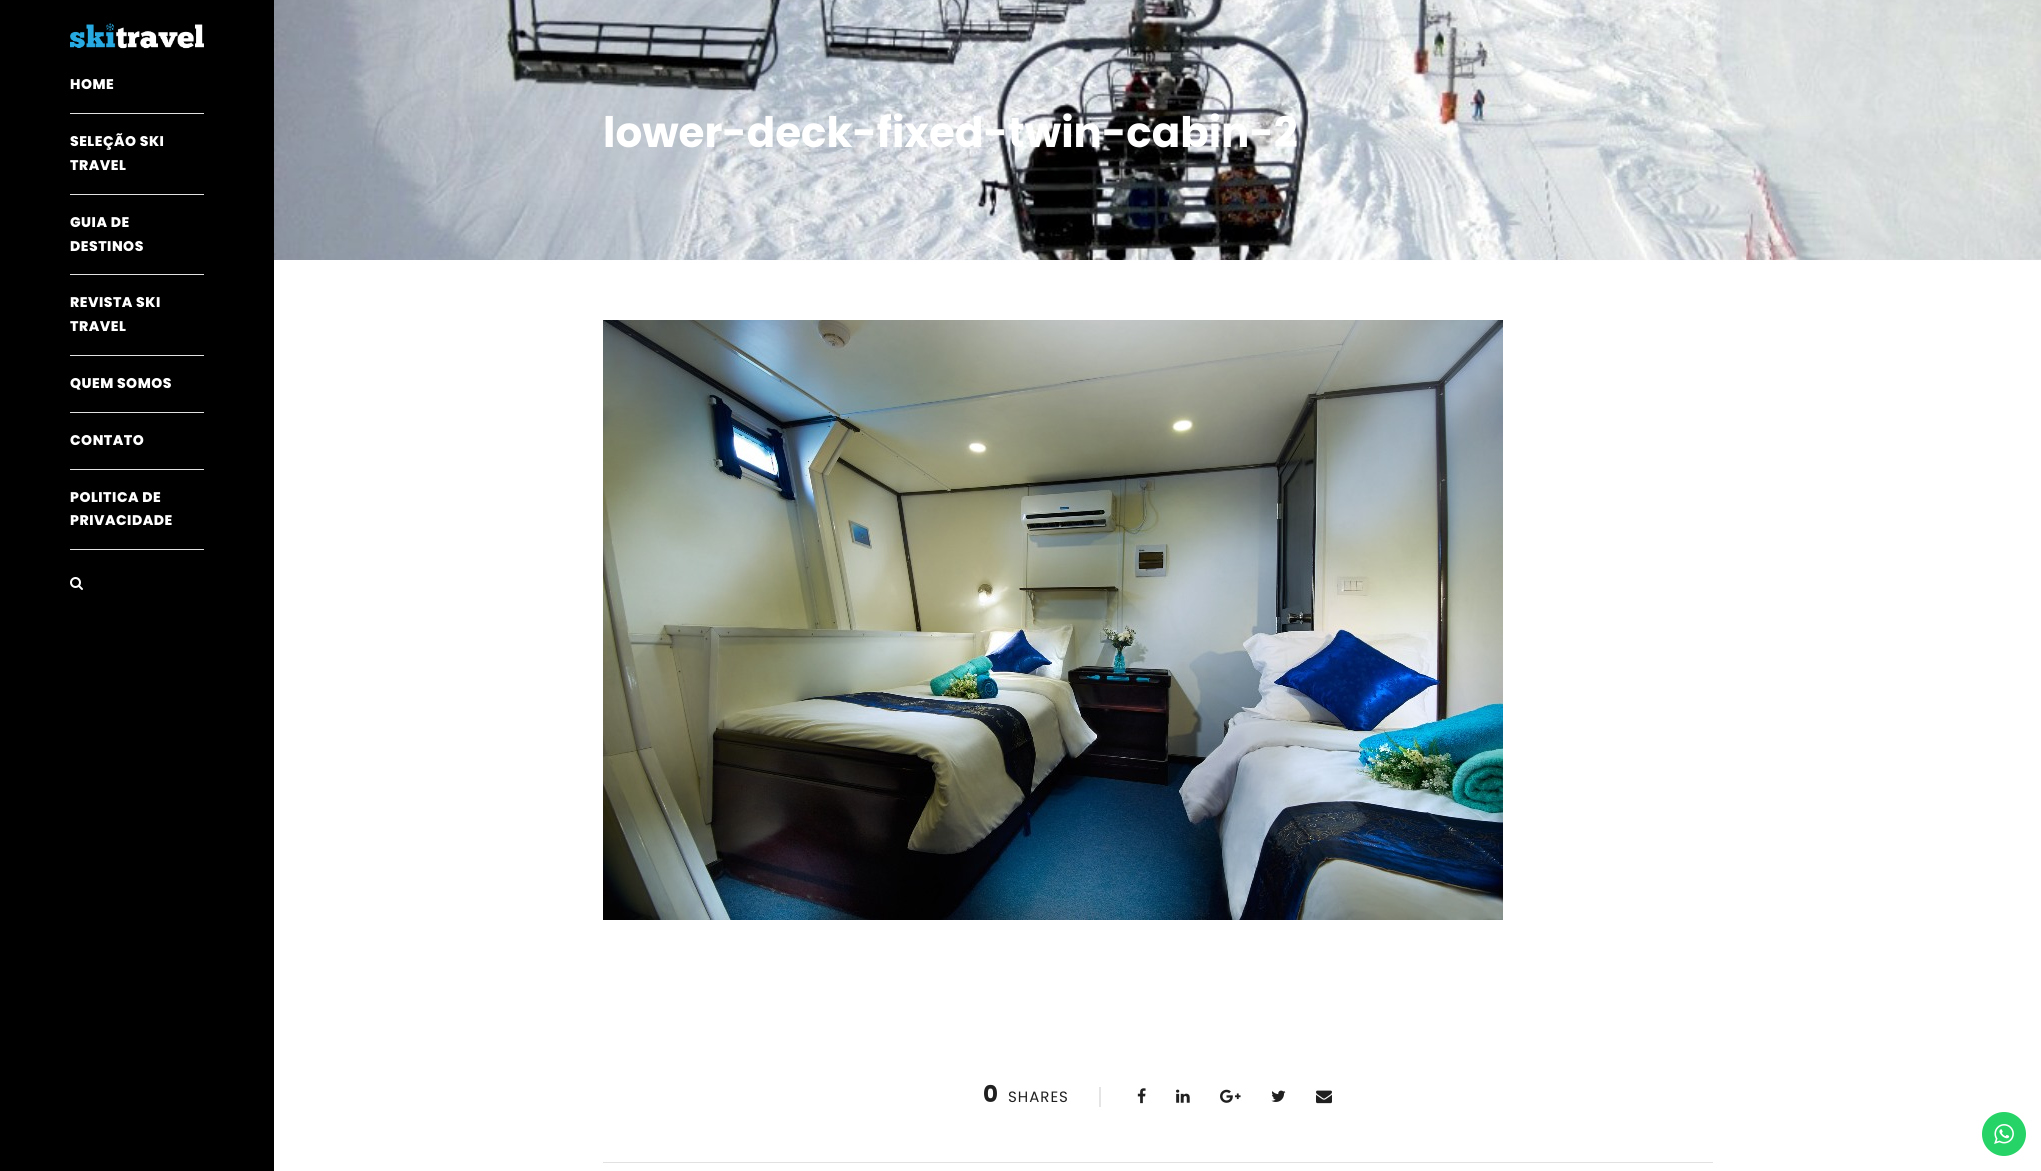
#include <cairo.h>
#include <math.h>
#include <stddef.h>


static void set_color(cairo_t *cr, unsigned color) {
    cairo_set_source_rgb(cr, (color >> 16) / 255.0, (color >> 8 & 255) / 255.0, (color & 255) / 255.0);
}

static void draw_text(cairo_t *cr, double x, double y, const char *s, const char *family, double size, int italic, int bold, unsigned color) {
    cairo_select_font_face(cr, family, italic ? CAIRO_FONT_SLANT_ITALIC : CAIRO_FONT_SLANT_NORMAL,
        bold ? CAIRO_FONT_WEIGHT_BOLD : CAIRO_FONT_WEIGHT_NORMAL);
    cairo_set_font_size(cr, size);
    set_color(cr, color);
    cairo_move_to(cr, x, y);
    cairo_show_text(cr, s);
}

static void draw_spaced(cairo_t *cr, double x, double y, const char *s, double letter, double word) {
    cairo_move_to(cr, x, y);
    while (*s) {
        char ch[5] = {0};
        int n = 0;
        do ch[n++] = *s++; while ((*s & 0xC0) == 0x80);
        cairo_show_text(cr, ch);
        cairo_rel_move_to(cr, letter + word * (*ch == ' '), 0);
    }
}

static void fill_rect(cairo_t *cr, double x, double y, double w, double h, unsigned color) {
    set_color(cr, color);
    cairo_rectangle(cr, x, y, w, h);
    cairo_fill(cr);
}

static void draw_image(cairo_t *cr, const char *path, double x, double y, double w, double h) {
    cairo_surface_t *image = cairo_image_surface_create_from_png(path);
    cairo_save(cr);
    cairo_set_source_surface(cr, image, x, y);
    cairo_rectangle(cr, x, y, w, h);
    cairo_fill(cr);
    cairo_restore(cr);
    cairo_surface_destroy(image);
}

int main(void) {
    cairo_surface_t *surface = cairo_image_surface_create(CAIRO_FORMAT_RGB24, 2041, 1171);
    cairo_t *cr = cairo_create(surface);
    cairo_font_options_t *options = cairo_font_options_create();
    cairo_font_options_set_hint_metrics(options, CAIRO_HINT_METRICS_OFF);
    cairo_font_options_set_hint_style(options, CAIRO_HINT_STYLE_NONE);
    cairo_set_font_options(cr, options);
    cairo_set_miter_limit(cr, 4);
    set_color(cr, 0xFFFFFF);
    cairo_paint(cr);
    fill_rect(cr, 0, 0, 274, 1171, 0x000000);
    draw_image(cr, "assets/img1.png", 70, 23, 134, 26);
    fill_rect(cr, 70, 113, 134, 1, 0xE1E1E1);
    cairo_select_font_face(cr, "Poppins ExtraBold", CAIRO_FONT_SLANT_NORMAL, CAIRO_FONT_WEIGHT_NORMAL);
    cairo_set_font_size(cr, 14);
    set_color(cr, 0xFFFFFF);
    draw_spaced(cr, 70, 89, "HOME", 0.5, 0);
    fill_rect(cr, 70, 194, 134, 1, 0xE1E1E1);
    set_color(cr, 0xFFFFFF);
    draw_spaced(cr, 70, 146, "SELEÇÃO SKI", 0.5, 0);
    draw_spaced(cr, 70, 170, "TRAVEL", 0.5, 0);
    fill_rect(cr, 70, 274, 134, 1, 0xE1E1E1);
    set_color(cr, 0xFFFFFF);
    draw_spaced(cr, 70, 227, "GUIA DE", 0.5, 0);
    draw_spaced(cr, 70, 251, "DESTINOS", 0.5, 0);
    fill_rect(cr, 70, 355, 134, 1, 0xE1E1E1);
    set_color(cr, 0xFFFFFF);
    draw_spaced(cr, 70, 307, "REVISTA SKI", 0.5, 0);
    draw_spaced(cr, 70, 331, "TRAVEL", 0.5, 0);
    fill_rect(cr, 70, 412, 134, 1, 0xE1E1E1);
    set_color(cr, 0xFFFFFF);
    draw_spaced(cr, 70, 388, "QUEM SOMOS", 0.5, 0);
    fill_rect(cr, 70, 469, 134, 1, 0xE1E1E1);
    set_color(cr, 0xFFFFFF);
    draw_spaced(cr, 70, 445, "CONTATO", 0.5, 0);
    fill_rect(cr, 70, 549, 134, 1, 0xE1E1E1);
    set_color(cr, 0xFFFFFF);
    draw_spaced(cr, 70, 502, "POLITICA DE", 0.5, 0);
    draw_spaced(cr, 70, 525, "PRIVACIDADE", 0.5, 0);
    draw_image(cr, "assets/img2.png", 70, 577, 13, 13);
    draw_image(cr, "assets/img3.png", 274, 0, 1767, 260);
    draw_text(cr, 603, 147, "lower-deck-fixed-twin-cabin-2", "Poppins", 42, 0, 1, 0xFFFFFF);
    draw_image(cr, "assets/img4.png", 603, 320, 900, 600);
    draw_text(cr, 983, 1102, "0", "Poppins", 23, 0, 1, 0x202020);
    cairo_select_font_face(cr, "Poppins", CAIRO_FONT_SLANT_NORMAL, CAIRO_FONT_WEIGHT_NORMAL);
    cairo_set_font_size(cr, 15);
    draw_spaced(cr, 1008, 1102, "SHARES", 1, 0);
    fill_rect(cr, 1099, 1087, 2, 20, 0xE5E5E5);
    draw_image(cr, "assets/img5.png", 1137, 1088, 9, 16);
    draw_image(cr, "assets/img6.png", 1176, 1089, 14, 14);
    draw_image(cr, "assets/img7.png", 1220, 1089, 21, 14);
    draw_image(cr, "assets/img8.png", 1271, 1090, 15, 12);
    draw_image(cr, "assets/img9.png", 1316, 1090, 16, 14);
    fill_rect(cr, 603, 1162, 1110, 1, 0xE1E1E1);
    set_color(cr, 0x25D366);
    cairo_arc(cr, 2004, 1134, 22, 0, 2 * M_PI);
    cairo_fill(cr);
    draw_image(cr, "assets/img10.png", 1994, 1124, 20, 20);
    cairo_surface_write_to_png(surface, "output.png");
    cairo_font_options_destroy(options);
    cairo_destroy(cr);
    cairo_surface_destroy(surface);
    return 0;
}
